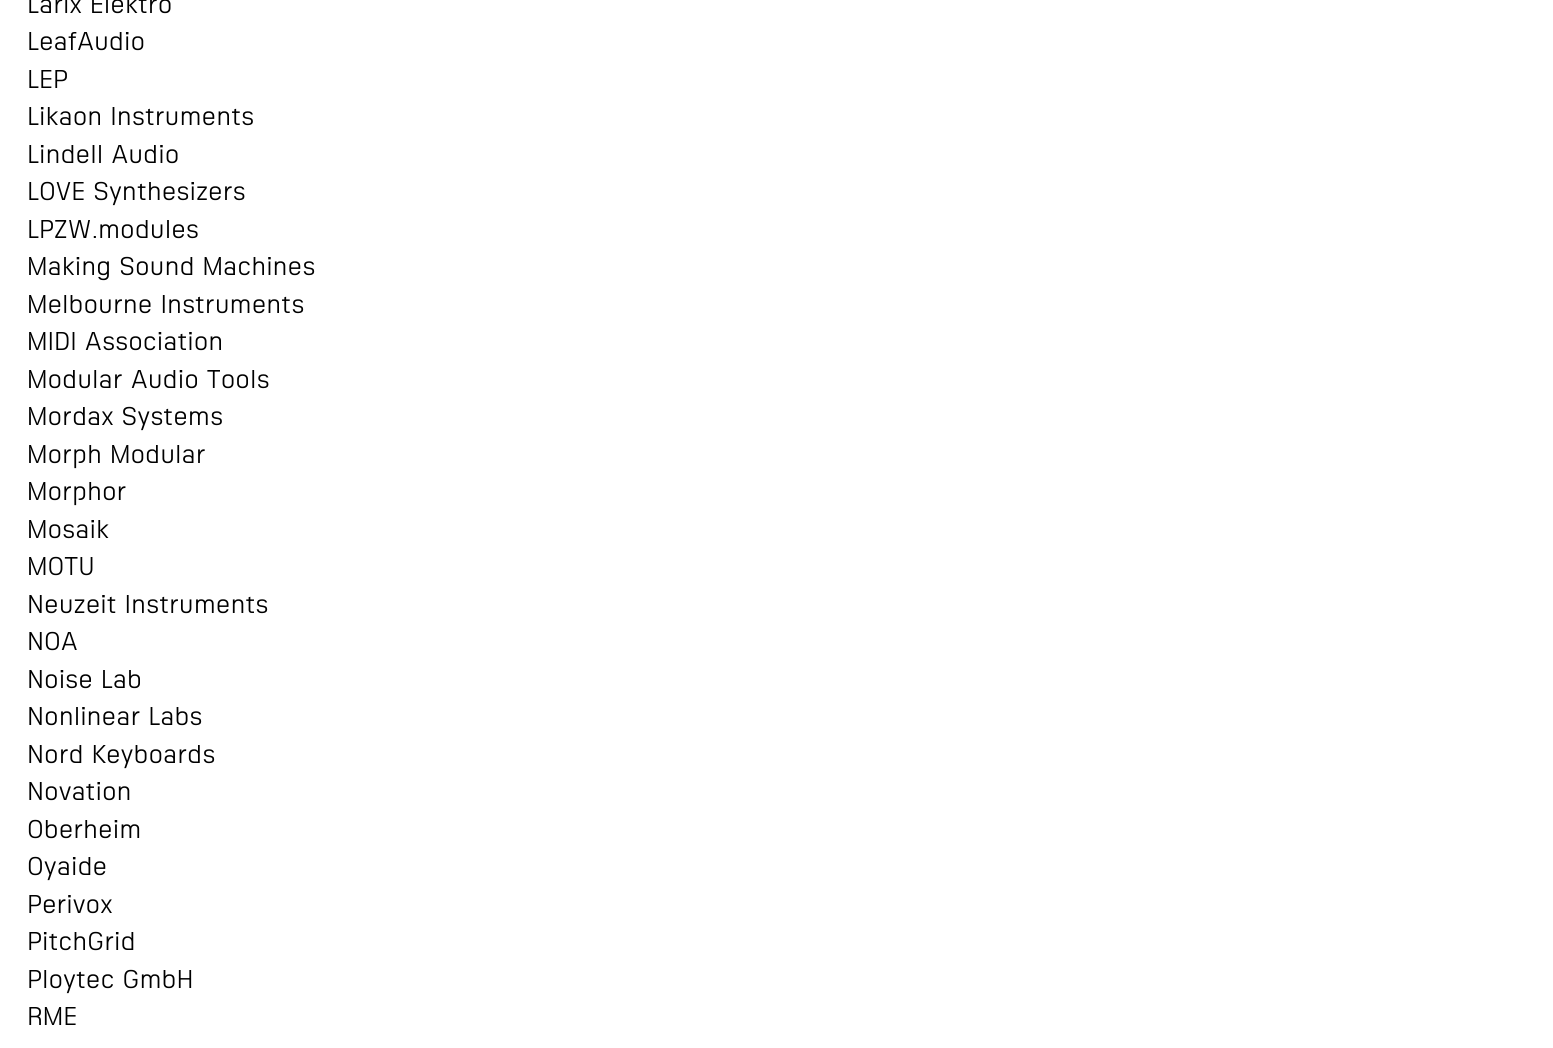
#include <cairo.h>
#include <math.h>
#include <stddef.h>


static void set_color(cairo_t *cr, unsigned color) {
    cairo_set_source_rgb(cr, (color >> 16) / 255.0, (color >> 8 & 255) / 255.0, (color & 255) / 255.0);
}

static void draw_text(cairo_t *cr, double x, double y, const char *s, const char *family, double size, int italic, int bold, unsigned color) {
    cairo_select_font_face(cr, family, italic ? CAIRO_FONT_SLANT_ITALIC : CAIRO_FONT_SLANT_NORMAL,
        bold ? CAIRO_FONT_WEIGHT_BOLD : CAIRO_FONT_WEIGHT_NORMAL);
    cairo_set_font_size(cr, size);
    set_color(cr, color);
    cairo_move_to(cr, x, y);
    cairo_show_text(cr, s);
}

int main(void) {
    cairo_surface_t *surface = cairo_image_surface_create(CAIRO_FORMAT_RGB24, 1553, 1048);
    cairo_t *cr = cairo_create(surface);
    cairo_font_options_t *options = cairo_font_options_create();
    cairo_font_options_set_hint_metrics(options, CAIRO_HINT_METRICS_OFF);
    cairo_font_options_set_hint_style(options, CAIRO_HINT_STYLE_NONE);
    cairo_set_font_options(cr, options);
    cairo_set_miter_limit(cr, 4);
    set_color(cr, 0xFFFFFF);
    cairo_paint(cr);
    draw_text(cr, 27, 13, "Larix Elektro", "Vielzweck", 25, 0, 0, 0x000000);
    draw_text(cr, 27, 50, "LeafAudio", "Vielzweck", 25, 0, 0, 0x000000);
    draw_text(cr, 27, 88, "LEP", "Vielzweck", 25, 0, 0, 0x000000);
    draw_text(cr, 27, 125, "Likaon Instruments", "Vielzweck", 25, 0, 0, 0x000000);
    draw_text(cr, 27, 163, "Lindell Audio", "Vielzweck", 25, 0, 0, 0x000000);
    draw_text(cr, 27, 200, "LOVE Synthesizers", "Vielzweck", 25, 0, 0, 0x000000);
    draw_text(cr, 27, 238, "LPZW.modules", "Vielzweck", 25, 0, 0, 0x000000);
    draw_text(cr, 27, 275, "Making Sound Machines", "Vielzweck", 25, 0, 0, 0x000000);
    draw_text(cr, 27, 313, "Melbourne Instruments", "Vielzweck", 25, 0, 0, 0x000000);
    draw_text(cr, 27, 350, "MIDI Association", "Vielzweck", 25, 0, 0, 0x000000);
    draw_text(cr, 27, 388, "Modular Audio Tools", "Vielzweck", 25, 0, 0, 0x000000);
    draw_text(cr, 27, 425, "Mordax Systems", "Vielzweck", 25, 0, 0, 0x000000);
    draw_text(cr, 27, 463, "Morph Modular", "Vielzweck", 25, 0, 0, 0x000000);
    draw_text(cr, 27, 500, "Morphor", "Vielzweck", 25, 0, 0, 0x000000);
    draw_text(cr, 27, 538, "Mosaik", "Vielzweck", 25, 0, 0, 0x000000);
    draw_text(cr, 27, 575, "MOTU", "Vielzweck", 25, 0, 0, 0x000000);
    draw_text(cr, 27, 613, "Neuzeit Instruments", "Vielzweck", 25, 0, 0, 0x000000);
    draw_text(cr, 27, 650, "NOA", "Vielzweck", 25, 0, 0, 0x000000);
    draw_text(cr, 27, 688, "Noise Lab", "Vielzweck", 25, 0, 0, 0x000000);
    draw_text(cr, 27, 725, "Nonlinear Labs", "Vielzweck", 25, 0, 0, 0x000000);
    draw_text(cr, 27, 763, "Nord Keyboards", "Vielzweck", 25, 0, 0, 0x000000);
    draw_text(cr, 27, 800, "Novation", "Vielzweck", 25, 0, 0, 0x000000);
    draw_text(cr, 27, 838, "Oberheim", "Vielzweck", 25, 0, 0, 0x000000);
    draw_text(cr, 27, 875, "Oyaide", "Vielzweck", 25, 0, 0, 0x000000);
    draw_text(cr, 27, 913, "Perivox", "Vielzweck", 25, 0, 0, 0x000000);
    draw_text(cr, 27, 950, "PitchGrid", "Vielzweck", 25, 0, 0, 0x000000);
    draw_text(cr, 27, 988, "Ploytec GmbH", "Vielzweck", 25, 0, 0, 0x000000);
    draw_text(cr, 27, 1025, "RME", "Vielzweck", 25, 0, 0, 0x000000);
    cairo_surface_write_to_png(surface, "output.png");
    cairo_font_options_destroy(options);
    cairo_destroy(cr);
    cairo_surface_destroy(surface);
    return 0;
}
